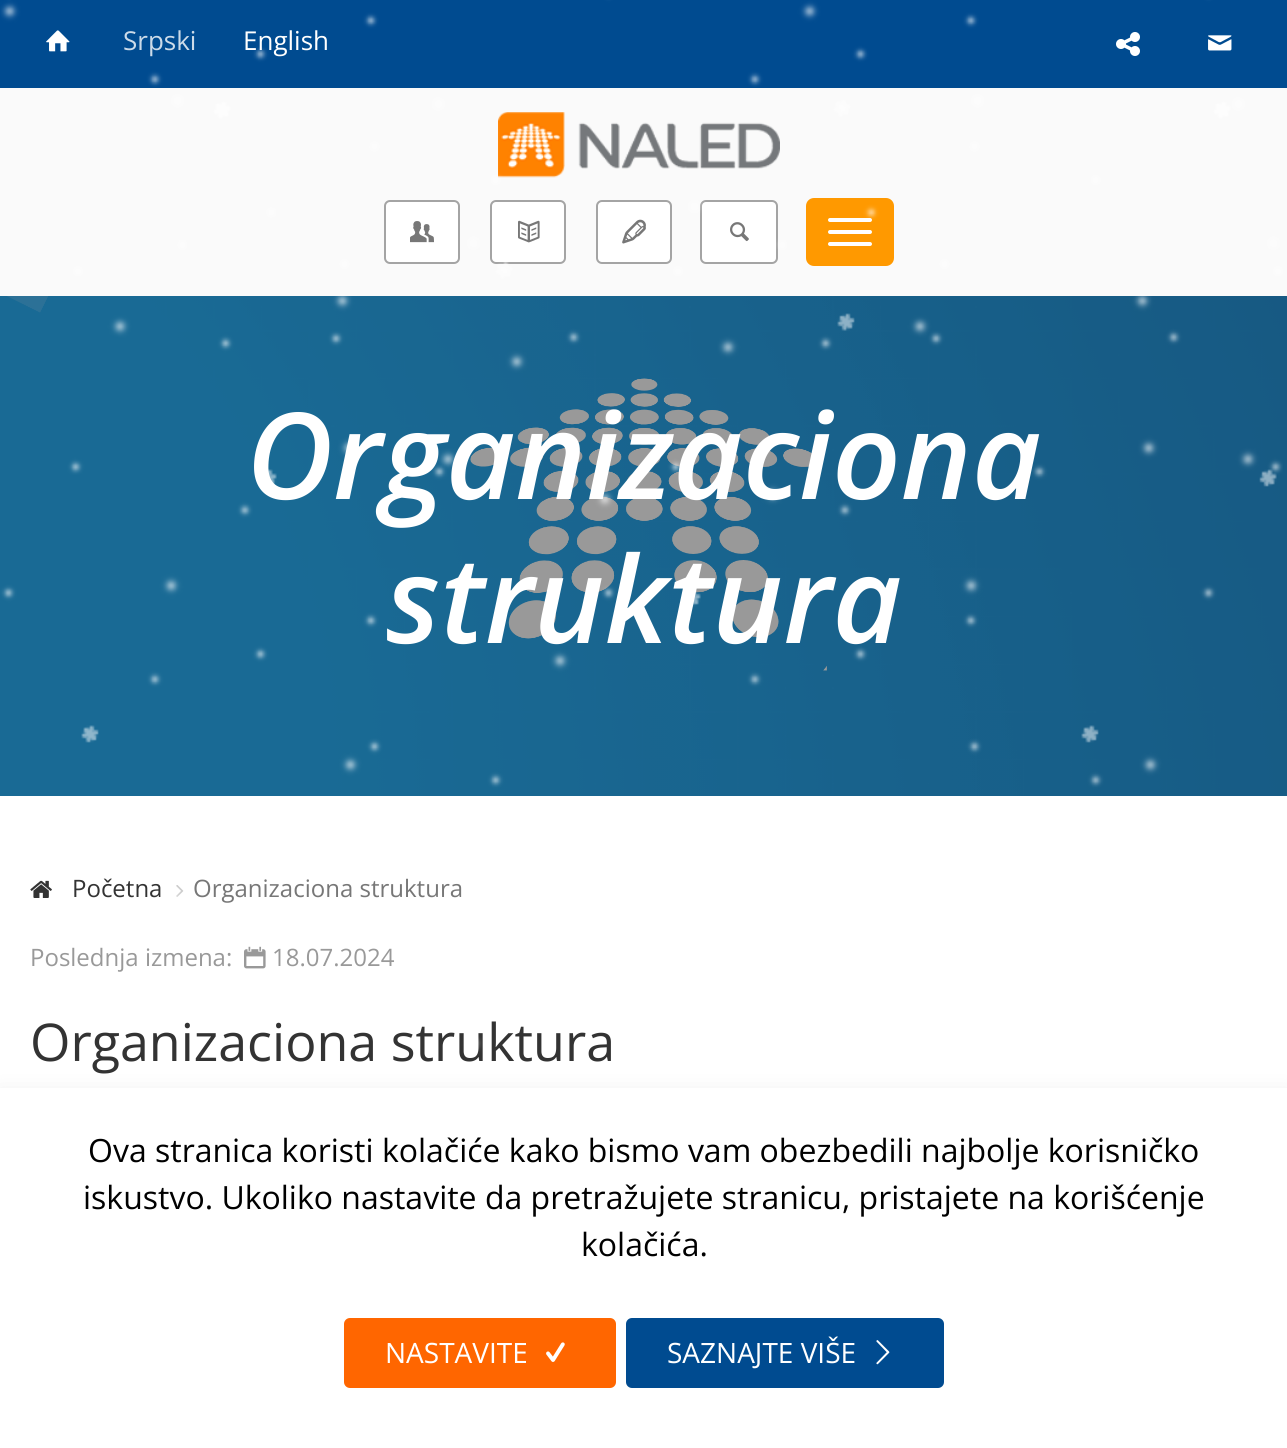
#include <cairo.h>
#include <math.h>
#include <stddef.h>


static void set_color(cairo_t *cr, unsigned color) {
    cairo_set_source_rgb(cr, (color >> 16) / 255.0, (color >> 8 & 255) / 255.0, (color & 255) / 255.0);
}

static void draw_text(cairo_t *cr, double x, double y, const char *s, const char *family, double size, int italic, int bold, unsigned color) {
    cairo_select_font_face(cr, family, italic ? CAIRO_FONT_SLANT_ITALIC : CAIRO_FONT_SLANT_NORMAL,
        bold ? CAIRO_FONT_WEIGHT_BOLD : CAIRO_FONT_WEIGHT_NORMAL);
    cairo_set_font_size(cr, size);
    set_color(cr, color);
    cairo_move_to(cr, x, y);
    cairo_show_text(cr, s);
}

static void fill_rect(cairo_t *cr, double x, double y, double w, double h, unsigned color) {
    set_color(cr, color);
    cairo_rectangle(cr, x, y, w, h);
    cairo_fill(cr);
}

static void rounded_rect(cairo_t *cr, double x, double y, double w, double h, double r) {
    cairo_new_sub_path(cr);
    cairo_arc(cr, x + w - r, y + h - r, r, 0, M_PI / 2);
    cairo_arc(cr, x + r, y + h - r, r, M_PI / 2, M_PI);
    cairo_arc(cr, x + r, y + r, r, M_PI, 1.5 * M_PI);
    cairo_arc(cr, x + w - r, y + r, r, 1.5 * M_PI, 2 * M_PI);
    cairo_close_path(cr);
}

static void draw_shadow(cairo_t *cr, double x, double y, double w, double h, double r, double blur, double alpha) {
    cairo_push_group_with_content(cr, CAIRO_CONTENT_ALPHA);
    cairo_set_operator(cr, CAIRO_OPERATOR_SOURCE);
    for (int i = 15; i >= -15 && fmin(w, h) + blur * i / 3 > 0; i -= 2) {
        double e = blur * i / 6;
        cairo_set_source_rgba(cr, 0, 0, 0, alpha * erfc((i - 1) / 8.5) / 2);
        rounded_rect(cr, x - e, y - e, w + 2 * e, h + 2 * e, fmax(0, fmin(r + e + blur * .6, fmin(w, h) / 2 + e)));
        cairo_fill(cr);
    }
    cairo_pattern_t *soft = cairo_pop_group(cr);
    cairo_mask(cr, soft);
    cairo_pattern_destroy(soft);
}

static void draw_image(cairo_t *cr, const char *path, double x, double y, double w, double h) {
    cairo_surface_t *image = cairo_image_surface_create_from_png(path);
    cairo_save(cr);
    cairo_set_source_surface(cr, image, x, y);
    cairo_rectangle(cr, x, y, w, h);
    cairo_fill(cr);
    cairo_restore(cr);
    cairo_surface_destroy(image);
}

int main(void) {
    cairo_surface_t *surface = cairo_image_surface_create(CAIRO_FORMAT_RGB24, 1287, 1448);
    cairo_t *cr = cairo_create(surface);
    cairo_font_options_t *options = cairo_font_options_create();
    cairo_font_options_set_hint_metrics(options, CAIRO_HINT_METRICS_OFF);
    cairo_font_options_set_hint_style(options, CAIRO_HINT_STYLE_NONE);
    cairo_set_font_options(cr, options);
    cairo_set_miter_limit(cr, 4);
    set_color(cr, 0xFFFFFF);
    cairo_paint(cr);
    fill_rect(cr, 0, 0, 1287, 88, 0x004B90);
    draw_image(cr, "assets/img2.png", 46, 30, 24, 22);
    draw_text(cr, 123, 50, "Srpski", "Open Sans", 26, 0, 0, 0xCCDBE9);
    draw_text(cr, 243, 50, "English", "Open Sans", 26, 0, 0, 0xFFFFFF);
    draw_image(cr, "assets/img3.png", 1116, 32, 24, 24);
    draw_image(cr, "assets/img4.png", 1208, 35, 24, 16);
    fill_rect(cr, 0, 88, 1287, 208, 0xFAFAFA);
    draw_image(cr, "assets/img5.png", 498, 112, 282, 66);
    set_color(cr, 0xFFFFFF);
    rounded_rect(cr, 385, 201, 74, 62, 5);
    cairo_fill_preserve(cr);
    set_color(cr, 0xA4A4A4);
    cairo_stroke(cr);
    draw_image(cr, "assets/img6.png", 410, 221, 24, 22);
    set_color(cr, 0xFFFFFF);
    rounded_rect(cr, 491, 201, 74, 62, 5);
    cairo_fill_preserve(cr);
    set_color(cr, 0xA4A4A4);
    cairo_stroke(cr);
    draw_image(cr, "assets/img7.png", 518, 220, 22, 23);
    set_color(cr, 0xFFFFFF);
    rounded_rect(cr, 597, 201, 74, 62, 5);
    cairo_fill_preserve(cr);
    set_color(cr, 0xA4A4A4);
    cairo_stroke(cr);
    draw_image(cr, "assets/img8.png", 622, 219, 24, 25);
    set_color(cr, 0xFFFFFF);
    rounded_rect(cr, 701, 201, 76, 62, 5);
    cairo_fill_preserve(cr);
    set_color(cr, 0xA4A4A4);
    cairo_stroke(cr);
    draw_image(cr, "assets/img9.png", 730, 222, 19, 20);
    set_color(cr, 0xFF9900);
    rounded_rect(cr, 807, 199, 86, 66, 7);
    cairo_fill_preserve(cr);
    cairo_stroke(cr);
    set_color(cr, 0xFFFFFF);
    rounded_rect(cr, 828, 218, 44, 4, 2);
    cairo_fill(cr);
    rounded_rect(cr, 828, 230, 44, 4, 2);
    cairo_fill(cr);
    rounded_rect(cr, 828, 242, 44, 4, 2);
    cairo_fill(cr);
    draw_image(cr, "assets/img10.png", 0, 296, 1287, 500);
    draw_text(cr, 246, 499, "Organizaciona", "Open Sans SemiBold", 120, 1, 0, 0xFFFFFF);
    draw_text(cr, 386, 643, "struktura", "Open Sans SemiBold", 120, 1, 0, 0xFFFFFF);
    draw_image(cr, "assets/img11.png", 30, 880, 22, 18);
    draw_text(cr, 72, 897, "Početna", "Open Sans", 24, 0, 0, 0x333333);
    draw_image(cr, "assets/img12.png", 176, 885, 8, 12);
    draw_text(cr, 193, 897, "Organizaciona struktura", "Open Sans", 24, 0, 0, 0x777777);
    draw_text(cr, 30, 966, "Poslednja izmena:", "Open Sans", 24, 0, 0, 0x999999);
    draw_image(cr, "assets/img13.png", 244, 946, 22, 23);
    draw_text(cr, 272, 966, "18.07.2024", "Open Sans", 24, 0, 0, 0x999999);
    draw_text(cr, 30, 1061, "Organizaciona struktura", "Open Sans", 52, 0, 0, 0x333333);
    draw_image(cr, "assets/img1.png", 0, 0, 1283, 1079);
    set_color(cr, 0x000000);
    draw_shadow(cr, 0, 1096, 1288, 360, 0, 12, 0.1);
    fill_rect(cr, 0, 1088, 1287, 360, 0xFFFFFF);
    draw_text(cr, 88, 1162, "Ova stranica koristi kolačiće kako bismo vam obezbedili najbolje korisničko", "Open Sans", 32, 0, 0, 0x000000);
    draw_text(cr, 83, 1209, "iskustvo. Ukoliko nastavite da pretražujete stranicu, pristajete na korišćenje", "Open Sans", 32, 0, 0, 0x000000);
    draw_text(cr, 581, 1256, "kolačića.", "Open Sans", 32, 0, 0, 0x000000);
    set_color(cr, 0xFF6600);
    rounded_rect(cr, 345, 1319, 270, 68, 5);
    cairo_fill_preserve(cr);
    cairo_stroke(cr);
    draw_text(cr, 385, 1363, "NASTAVITE", "Open Sans", 28, 0, 0, 0xFFFFFF);
    draw_image(cr, "assets/img14.png", 546, 1342, 19, 20);
    set_color(cr, 0x004B90);
    rounded_rect(cr, 626, 1318, 318, 70, 6);
    cairo_fill(cr);
    draw_text(cr, 667, 1363, "SAZNAJTE VIŠE", "Open Sans", 28, 0, 0, 0xFFFFFF);
    draw_image(cr, "assets/img15.png", 876, 1340, 14, 25);
    cairo_surface_write_to_png(surface, "output.png");
    cairo_font_options_destroy(options);
    cairo_destroy(cr);
    cairo_surface_destroy(surface);
    return 0;
}
